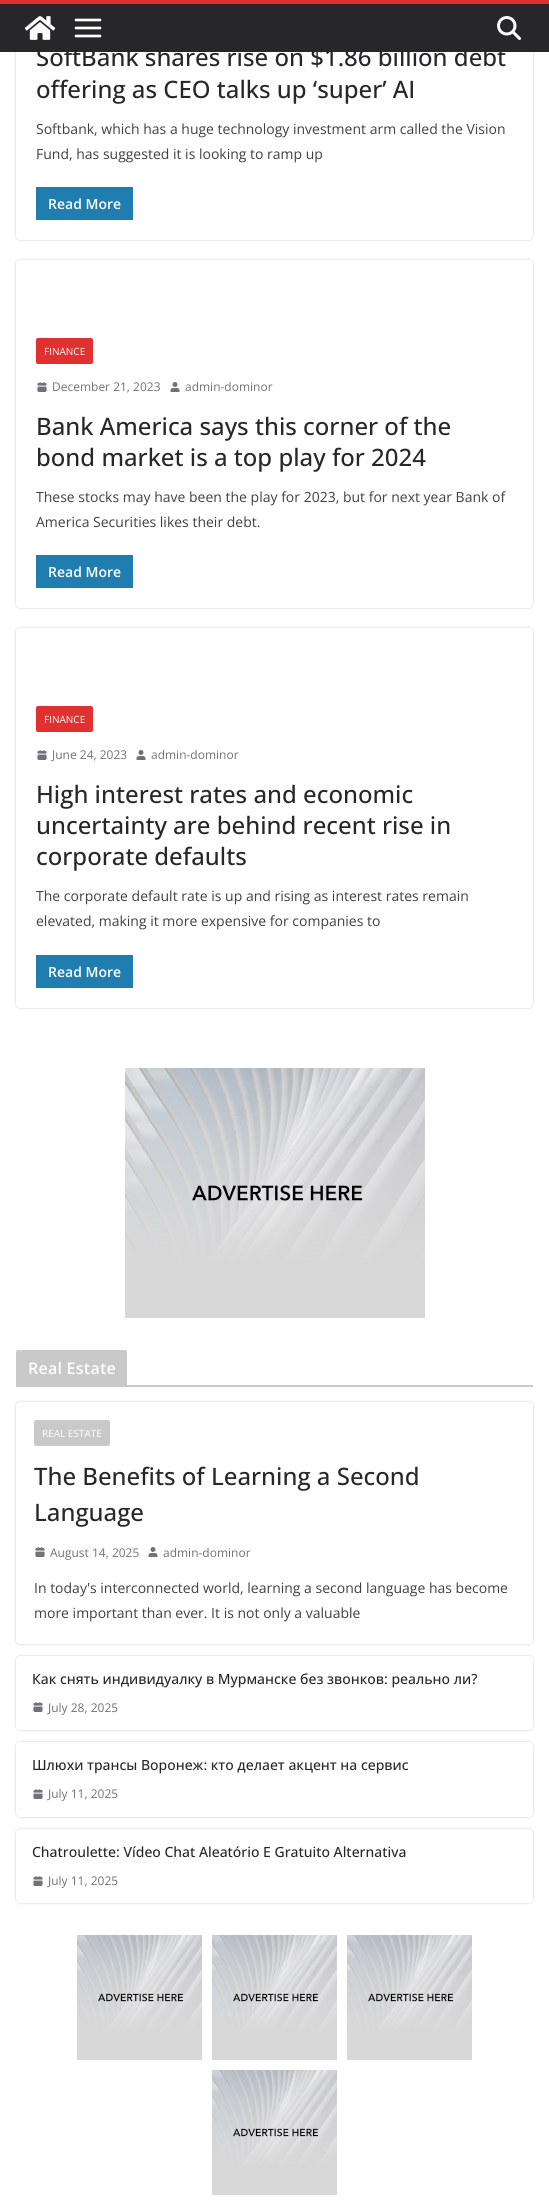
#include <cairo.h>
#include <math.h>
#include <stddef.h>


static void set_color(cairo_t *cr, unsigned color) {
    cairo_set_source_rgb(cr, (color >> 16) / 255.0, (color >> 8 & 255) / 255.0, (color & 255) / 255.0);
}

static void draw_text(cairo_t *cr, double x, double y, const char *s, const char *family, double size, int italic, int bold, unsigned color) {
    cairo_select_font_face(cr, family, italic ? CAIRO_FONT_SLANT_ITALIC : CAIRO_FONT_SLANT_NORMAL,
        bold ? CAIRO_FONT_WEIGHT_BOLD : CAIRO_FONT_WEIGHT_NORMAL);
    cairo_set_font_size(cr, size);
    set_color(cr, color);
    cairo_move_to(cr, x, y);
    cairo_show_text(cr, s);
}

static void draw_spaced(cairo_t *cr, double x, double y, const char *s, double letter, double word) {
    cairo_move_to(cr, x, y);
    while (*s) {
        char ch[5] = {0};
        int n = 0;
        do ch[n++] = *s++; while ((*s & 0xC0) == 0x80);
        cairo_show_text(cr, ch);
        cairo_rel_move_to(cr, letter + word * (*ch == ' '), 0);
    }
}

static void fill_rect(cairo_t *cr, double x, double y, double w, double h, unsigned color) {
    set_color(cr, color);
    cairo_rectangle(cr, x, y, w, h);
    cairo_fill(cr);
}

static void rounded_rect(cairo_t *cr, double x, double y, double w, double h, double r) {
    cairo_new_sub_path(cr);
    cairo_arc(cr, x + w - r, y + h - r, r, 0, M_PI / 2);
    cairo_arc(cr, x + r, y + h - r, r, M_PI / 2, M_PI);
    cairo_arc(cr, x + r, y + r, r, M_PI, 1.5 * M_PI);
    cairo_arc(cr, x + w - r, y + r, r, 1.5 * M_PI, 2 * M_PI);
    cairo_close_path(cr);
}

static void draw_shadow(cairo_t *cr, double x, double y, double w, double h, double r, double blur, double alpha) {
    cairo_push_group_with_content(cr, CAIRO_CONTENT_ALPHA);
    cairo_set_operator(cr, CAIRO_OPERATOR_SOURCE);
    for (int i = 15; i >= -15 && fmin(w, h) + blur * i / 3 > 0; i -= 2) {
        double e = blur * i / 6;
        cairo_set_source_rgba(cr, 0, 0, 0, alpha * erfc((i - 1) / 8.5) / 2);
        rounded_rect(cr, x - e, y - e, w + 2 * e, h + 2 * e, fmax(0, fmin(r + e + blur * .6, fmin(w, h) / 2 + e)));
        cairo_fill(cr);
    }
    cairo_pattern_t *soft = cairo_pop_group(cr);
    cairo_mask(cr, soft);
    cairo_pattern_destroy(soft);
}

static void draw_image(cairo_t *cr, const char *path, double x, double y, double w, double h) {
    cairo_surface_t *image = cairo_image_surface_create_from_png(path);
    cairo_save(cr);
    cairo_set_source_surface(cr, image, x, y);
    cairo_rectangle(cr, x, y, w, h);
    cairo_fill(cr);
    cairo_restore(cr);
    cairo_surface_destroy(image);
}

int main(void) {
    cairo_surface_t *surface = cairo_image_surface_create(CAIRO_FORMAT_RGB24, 549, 2208);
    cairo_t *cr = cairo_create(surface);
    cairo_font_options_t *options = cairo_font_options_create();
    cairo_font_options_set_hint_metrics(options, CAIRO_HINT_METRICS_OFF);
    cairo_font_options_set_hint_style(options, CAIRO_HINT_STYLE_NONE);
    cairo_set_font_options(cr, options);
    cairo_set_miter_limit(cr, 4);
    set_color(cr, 0xFFFFFF);
    cairo_paint(cr);
    cairo_save(cr);
    cairo_set_fill_rule(cr, CAIRO_FILL_RULE_EVEN_ODD);
    cairo_new_path(cr);
    cairo_move_to(cr, 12, 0);
    cairo_line_to(cr, 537, 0);
    cairo_line_to(cr, 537, 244);
    cairo_line_to(cr, 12, 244);
    cairo_close_path(cr);
    cairo_move_to(cr, 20, -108);
    cairo_line_to(cr, 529, -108);
    cairo_curve_to(cr, 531, -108, 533, -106, 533, -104);
    cairo_line_to(cr, 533, 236);
    cairo_curve_to(cr, 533, 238, 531, 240, 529, 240);
    cairo_line_to(cr, 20, 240);
    cairo_curve_to(cr, 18, 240, 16, 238, 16, 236);
    cairo_line_to(cr, 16, -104);
    cairo_curve_to(cr, 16, -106, 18, -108, 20, -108);
    cairo_close_path(cr);
    cairo_clip(cr);
    set_color(cr, 0x000000);
    draw_shadow(cr, 16, -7, 517, 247, 4, 1, 0.24);
    cairo_restore(cr);
    fill_rect(cr, 0, 4, 549, 48, 0x27272A);
    fill_rect(cr, 0, 0, 549, 4, 0xE03030);
    draw_image(cr, "assets/img1.png", 24, 16, 32, 24);
    draw_image(cr, "assets/img2.png", 74, 18, 28, 20);
    draw_image(cr, "assets/img3.png", 497, 16, 24, 24);
    draw_text(cr, 36, 66, "SoftBank shares rise on $1.86 billion debt", "Open Sans Medium", 24, 0, 0, 0x27272A);
    draw_text(cr, 36, 98, "offering as CEO talks up ‘super’ AI", "Open Sans Medium", 24, 0, 0, 0x27272A);
    draw_text(cr, 36, 134, "Softbank, which has a huge technology investment arm called the Vision", "Open Sans", 14, 0, 0, 0x3F3F46);
    draw_text(cr, 36, 159, "Fund, has suggested it is looking to ramp up", "Open Sans", 14, 0, 0, 0x3F3F46);
    fill_rect(cr, 36, 187, 97, 33, 0xE03030);
    set_color(cr, 0x207DAF);
    rounded_rect(cr, 36, 187, 97, 33, 2);
    cairo_fill(cr);
    draw_text(cr, 48, 209, "Read More", "Open Sans SemiBold", 14, 0, 0, 0xFFFFFF);
    cairo_save(cr);
    cairo_set_fill_rule(cr, CAIRO_FILL_RULE_EVEN_ODD);
    cairo_new_path(cr);
    cairo_move_to(cr, 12, 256);
    cairo_line_to(cr, 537, 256);
    cairo_line_to(cr, 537, 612);
    cairo_line_to(cr, 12, 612);
    cairo_close_path(cr);
    cairo_move_to(cr, 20, 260);
    cairo_line_to(cr, 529, 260);
    cairo_curve_to(cr, 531, 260, 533, 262, 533, 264);
    cairo_line_to(cr, 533, 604);
    cairo_curve_to(cr, 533, 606, 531, 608, 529, 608);
    cairo_line_to(cr, 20, 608);
    cairo_curve_to(cr, 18, 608, 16, 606, 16, 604);
    cairo_line_to(cr, 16, 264);
    cairo_curve_to(cr, 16, 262, 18, 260, 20, 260);
    cairo_close_path(cr);
    cairo_clip(cr);
    set_color(cr, 0x000000);
    draw_shadow(cr, 16, 260, 517, 348, 4, 1, 0.24);
    cairo_restore(cr);
    set_color(cr, 0xE03030);
    rounded_rect(cr, 36, 338, 57, 26, 2);
    cairo_fill(cr);
    draw_text(cr, 44, 355, "FINANCE", "Open Sans", 10, 0, 0, 0xFFFFFF);
    draw_image(cr, "assets/img4.png", 37, 382, 10, 10);
    draw_text(cr, 52, 391, "December 21, 2023", "Open Sans", 12, 0, 0, 0x71717A);
    draw_image(cr, "assets/img5.png", 170, 382, 10, 10);
    draw_text(cr, 185, 391, "admin-dominor", "Open Sans", 12, 0, 0, 0x71717A);
    draw_text(cr, 36, 435, "Bank America says this corner of the", "Open Sans Medium", 24, 0, 0, 0x27272A);
    draw_text(cr, 36, 466, "bond market is a top play for 2024", "Open Sans Medium", 24, 0, 0, 0x27272A);
    draw_text(cr, 36, 502, "These stocks may have been the play for 2023, but for next year Bank of", "Open Sans", 14, 0, 0, 0x3F3F46);
    draw_text(cr, 36, 527, "America Securities likes their debt.", "Open Sans", 14, 0, 0, 0x3F3F46);
    fill_rect(cr, 36, 555, 97, 33, 0xE03030);
    set_color(cr, 0x207DAF);
    rounded_rect(cr, 36, 555, 97, 33, 2);
    cairo_fill(cr);
    draw_text(cr, 48, 577, "Read More", "Open Sans SemiBold", 14, 0, 0, 0xFFFFFF);
    cairo_save(cr);
    cairo_set_fill_rule(cr, CAIRO_FILL_RULE_EVEN_ODD);
    cairo_new_path(cr);
    cairo_move_to(cr, 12, 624);
    cairo_line_to(cr, 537, 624);
    cairo_line_to(cr, 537, 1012);
    cairo_line_to(cr, 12, 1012);
    cairo_close_path(cr);
    cairo_move_to(cr, 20, 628);
    cairo_line_to(cr, 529, 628);
    cairo_curve_to(cr, 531, 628, 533, 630, 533, 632);
    cairo_line_to(cr, 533, 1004);
    cairo_curve_to(cr, 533, 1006, 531, 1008, 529, 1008);
    cairo_line_to(cr, 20, 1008);
    cairo_curve_to(cr, 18, 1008, 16, 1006, 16, 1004);
    cairo_line_to(cr, 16, 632);
    cairo_curve_to(cr, 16, 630, 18, 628, 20, 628);
    cairo_close_path(cr);
    cairo_clip(cr);
    set_color(cr, 0x000000);
    draw_shadow(cr, 16, 628, 517, 380, 4, 1, 0.24);
    cairo_restore(cr);
    set_color(cr, 0xE03030);
    rounded_rect(cr, 36, 706, 57, 26, 2);
    cairo_fill(cr);
    draw_text(cr, 44, 723, "FINANCE", "Open Sans", 10, 0, 0, 0xFFFFFF);
    draw_image(cr, "assets/img4.png", 37, 750, 10, 10);
    draw_text(cr, 52, 759, "June 24, 2023", "Open Sans", 12, 0, 0, 0x71717A);
    draw_image(cr, "assets/img5.png", 136, 750, 10, 10);
    draw_text(cr, 151, 759, "admin-dominor", "Open Sans", 12, 0, 0, 0x71717A);
    draw_text(cr, 36, 803, "High interest rates and economic", "Open Sans Medium", 24, 0, 0, 0x27272A);
    draw_text(cr, 36, 834, "uncertainty are behind recent rise in", "Open Sans Medium", 24, 0, 0, 0x27272A);
    draw_text(cr, 36, 865, "corporate defaults", "Open Sans Medium", 24, 0, 0, 0x27272A);
    draw_text(cr, 36, 901, "The corporate default rate is up and rising as interest rates remain", "Open Sans", 14, 0, 0, 0x3F3F46);
    draw_text(cr, 36, 926, "elevated, making it more expensive for companies to", "Open Sans", 14, 0, 0, 0x3F3F46);
    fill_rect(cr, 36, 955, 97, 33, 0xE03030);
    set_color(cr, 0x207DAF);
    rounded_rect(cr, 36, 955, 97, 33, 2);
    cairo_fill(cr);
    draw_text(cr, 48, 977, "Read More", "Open Sans SemiBold", 14, 0, 0, 0xFFFFFF);
    draw_image(cr, "assets/img6.png", 125, 1068, 300, 250);
    fill_rect(cr, 16, 1385, 517, 2, 0xC9C9C9);
    cairo_new_path(cr);
    cairo_move_to(cr, 18, 1350);
    cairo_line_to(cr, 125, 1350);
    cairo_curve_to(cr, 126, 1350, 127, 1351, 127, 1352);
    cairo_line_to(cr, 127, 1385);
    cairo_line_to(cr, 16, 1385);
    cairo_line_to(cr, 16, 1352);
    cairo_curve_to(cr, 16, 1351, 17, 1350, 18, 1350);
    cairo_close_path(cr);
    cairo_fill(cr);
    cairo_set_font_size(cr, 16);
    set_color(cr, 0xFFFFFF);
    draw_spaced(cr, 28, 1374, "Real Estate", 0.25, 0);
    cairo_save(cr);
    cairo_set_fill_rule(cr, CAIRO_FILL_RULE_EVEN_ODD);
    cairo_new_path(cr);
    cairo_move_to(cr, 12, 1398);
    cairo_line_to(cr, 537, 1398);
    cairo_line_to(cr, 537, 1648);
    cairo_line_to(cr, 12, 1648);
    cairo_close_path(cr);
    cairo_move_to(cr, 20, 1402);
    cairo_line_to(cr, 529, 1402);
    cairo_curve_to(cr, 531, 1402, 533, 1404, 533, 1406);
    cairo_line_to(cr, 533, 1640);
    cairo_curve_to(cr, 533, 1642, 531, 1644, 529, 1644);
    cairo_line_to(cr, 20, 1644);
    cairo_curve_to(cr, 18, 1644, 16, 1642, 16, 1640);
    cairo_line_to(cr, 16, 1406);
    cairo_curve_to(cr, 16, 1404, 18, 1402, 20, 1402);
    cairo_close_path(cr);
    cairo_clip(cr);
    set_color(cr, 0x000000);
    draw_shadow(cr, 16, 1402, 517, 242, 4, 1, 0.24);
    cairo_restore(cr);
    set_color(cr, 0xC9C9C9);
    rounded_rect(cr, 34, 1420, 76, 26, 2);
    cairo_fill(cr);
    draw_text(cr, 42, 1437, "REAL ESTATE", "Open Sans", 10, 0, 0, 0xFFFFFF);
    draw_text(cr, 34, 1485, "The Benefits of Learning a Second", "Open Sans Medium", 24, 0, 0, 0x27272A);
    draw_text(cr, 34, 1521, "Language", "Open Sans Medium", 24, 0, 0, 0x27272A);
    draw_image(cr, "assets/img4.png", 35, 1547, 10, 10);
    draw_text(cr, 50, 1557, "August 14, 2025", "Open Sans", 12, 0, 0, 0x71717A);
    draw_image(cr, "assets/img5.png", 148, 1547, 10, 10);
    draw_text(cr, 163, 1557, "admin-dominor", "Open Sans", 12, 0, 0, 0x71717A);
    draw_text(cr, 34, 1593, "In today's interconnected world, learning a second language has become", "Open Sans", 14, 0, 0, 0x3F3F46);
    draw_text(cr, 34, 1618, "more important than ever. It is not only a valuable", "Open Sans", 14, 0, 0, 0x3F3F46);
    cairo_save(cr);
    cairo_set_fill_rule(cr, CAIRO_FILL_RULE_EVEN_ODD);
    cairo_new_path(cr);
    cairo_move_to(cr, 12, 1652);
    cairo_line_to(cr, 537, 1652);
    cairo_line_to(cr, 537, 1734);
    cairo_line_to(cr, 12, 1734);
    cairo_close_path(cr);
    cairo_move_to(cr, 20, 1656);
    cairo_line_to(cr, 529, 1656);
    cairo_curve_to(cr, 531, 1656, 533, 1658, 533, 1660);
    cairo_line_to(cr, 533, 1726);
    cairo_curve_to(cr, 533, 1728, 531, 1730, 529, 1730);
    cairo_line_to(cr, 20, 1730);
    cairo_curve_to(cr, 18, 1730, 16, 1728, 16, 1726);
    cairo_line_to(cr, 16, 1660);
    cairo_curve_to(cr, 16, 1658, 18, 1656, 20, 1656);
    cairo_close_path(cr);
    cairo_clip(cr);
    set_color(cr, 0x000000);
    draw_shadow(cr, 16, 1656, 517, 74, 4, 1, 0.24);
    cairo_restore(cr);
    draw_text(cr, 32, 1684, "Как снять индивидуалку в Мурманске без звонков: реально ли?", "Open Sans Medium", 14, 0, 0, 0x27272A);
    draw_image(cr, "assets/img4.png", 33, 1702, 10, 10);
    draw_text(cr, 48, 1712, "July 28, 2025", "Open Sans", 12, 0, 0, 0x71717A);
    cairo_save(cr);
    cairo_set_fill_rule(cr, CAIRO_FILL_RULE_EVEN_ODD);
    cairo_new_path(cr);
    cairo_move_to(cr, 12, 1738);
    cairo_line_to(cr, 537, 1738);
    cairo_line_to(cr, 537, 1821);
    cairo_line_to(cr, 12, 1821);
    cairo_close_path(cr);
    cairo_move_to(cr, 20, 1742);
    cairo_line_to(cr, 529, 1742);
    cairo_curve_to(cr, 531, 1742, 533, 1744, 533, 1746);
    cairo_line_to(cr, 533, 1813);
    cairo_curve_to(cr, 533, 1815, 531, 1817, 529, 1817);
    cairo_line_to(cr, 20, 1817);
    cairo_curve_to(cr, 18, 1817, 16, 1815, 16, 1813);
    cairo_line_to(cr, 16, 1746);
    cairo_curve_to(cr, 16, 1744, 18, 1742, 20, 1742);
    cairo_close_path(cr);
    cairo_clip(cr);
    set_color(cr, 0x000000);
    draw_shadow(cr, 16, 1742, 517, 75, 4, 1, 0.24);
    cairo_restore(cr);
    draw_text(cr, 32, 1770, "Шлюхи трансы Воронеж: кто делает акцент на сервис", "Open Sans Medium", 14, 0, 0, 0x27272A);
    draw_image(cr, "assets/img4.png", 33, 1789, 10, 10);
    draw_text(cr, 48, 1798, "July 11, 2025", "Open Sans", 12, 0, 0, 0x71717A);
    cairo_save(cr);
    cairo_set_fill_rule(cr, CAIRO_FILL_RULE_EVEN_ODD);
    cairo_new_path(cr);
    cairo_move_to(cr, 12, 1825);
    cairo_line_to(cr, 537, 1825);
    cairo_line_to(cr, 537, 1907);
    cairo_line_to(cr, 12, 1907);
    cairo_close_path(cr);
    cairo_move_to(cr, 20, 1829);
    cairo_line_to(cr, 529, 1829);
    cairo_curve_to(cr, 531, 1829, 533, 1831, 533, 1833);
    cairo_line_to(cr, 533, 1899);
    cairo_curve_to(cr, 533, 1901, 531, 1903, 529, 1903);
    cairo_line_to(cr, 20, 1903);
    cairo_curve_to(cr, 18, 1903, 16, 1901, 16, 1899);
    cairo_line_to(cr, 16, 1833);
    cairo_curve_to(cr, 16, 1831, 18, 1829, 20, 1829);
    cairo_close_path(cr);
    cairo_clip(cr);
    set_color(cr, 0x000000);
    draw_shadow(cr, 16, 1829, 517, 74, 4, 1, 0.24);
    cairo_restore(cr);
    draw_text(cr, 32, 1857, "Chatroulette: Vídeo Chat Aleatório E Gratuito Alternativa", "Open Sans Medium", 14, 0, 0, 0x27272A);
    draw_image(cr, "assets/img4.png", 33, 1876, 10, 10);
    draw_text(cr, 48, 1885, "July 11, 2025", "Open Sans", 12, 0, 0, 0x71717A);
    draw_image(cr, "assets/img7.png", 77, 1935, 125, 125);
    draw_image(cr, "assets/img7.png", 212, 1935, 125, 125);
    draw_image(cr, "assets/img7.png", 347, 1935, 125, 125);
    draw_image(cr, "assets/img7.png", 212, 2070, 125, 125);
    cairo_surface_write_to_png(surface, "output.png");
    cairo_font_options_destroy(options);
    cairo_destroy(cr);
    cairo_surface_destroy(surface);
    return 0;
}
